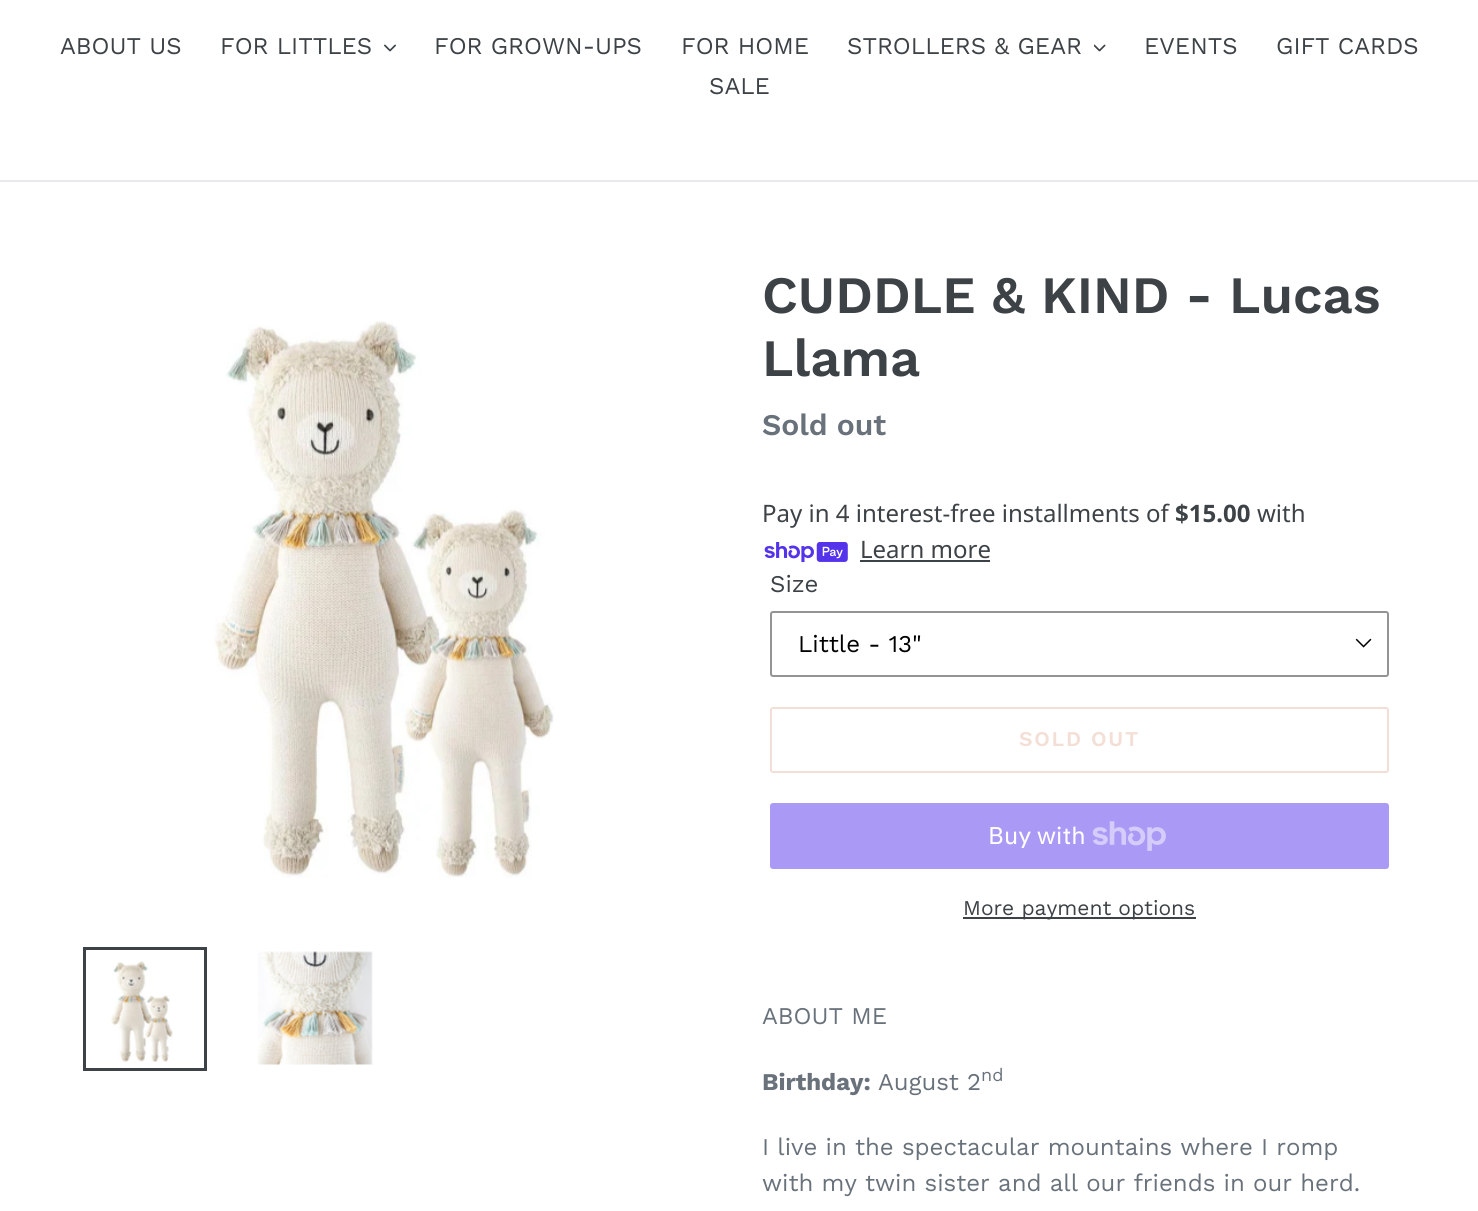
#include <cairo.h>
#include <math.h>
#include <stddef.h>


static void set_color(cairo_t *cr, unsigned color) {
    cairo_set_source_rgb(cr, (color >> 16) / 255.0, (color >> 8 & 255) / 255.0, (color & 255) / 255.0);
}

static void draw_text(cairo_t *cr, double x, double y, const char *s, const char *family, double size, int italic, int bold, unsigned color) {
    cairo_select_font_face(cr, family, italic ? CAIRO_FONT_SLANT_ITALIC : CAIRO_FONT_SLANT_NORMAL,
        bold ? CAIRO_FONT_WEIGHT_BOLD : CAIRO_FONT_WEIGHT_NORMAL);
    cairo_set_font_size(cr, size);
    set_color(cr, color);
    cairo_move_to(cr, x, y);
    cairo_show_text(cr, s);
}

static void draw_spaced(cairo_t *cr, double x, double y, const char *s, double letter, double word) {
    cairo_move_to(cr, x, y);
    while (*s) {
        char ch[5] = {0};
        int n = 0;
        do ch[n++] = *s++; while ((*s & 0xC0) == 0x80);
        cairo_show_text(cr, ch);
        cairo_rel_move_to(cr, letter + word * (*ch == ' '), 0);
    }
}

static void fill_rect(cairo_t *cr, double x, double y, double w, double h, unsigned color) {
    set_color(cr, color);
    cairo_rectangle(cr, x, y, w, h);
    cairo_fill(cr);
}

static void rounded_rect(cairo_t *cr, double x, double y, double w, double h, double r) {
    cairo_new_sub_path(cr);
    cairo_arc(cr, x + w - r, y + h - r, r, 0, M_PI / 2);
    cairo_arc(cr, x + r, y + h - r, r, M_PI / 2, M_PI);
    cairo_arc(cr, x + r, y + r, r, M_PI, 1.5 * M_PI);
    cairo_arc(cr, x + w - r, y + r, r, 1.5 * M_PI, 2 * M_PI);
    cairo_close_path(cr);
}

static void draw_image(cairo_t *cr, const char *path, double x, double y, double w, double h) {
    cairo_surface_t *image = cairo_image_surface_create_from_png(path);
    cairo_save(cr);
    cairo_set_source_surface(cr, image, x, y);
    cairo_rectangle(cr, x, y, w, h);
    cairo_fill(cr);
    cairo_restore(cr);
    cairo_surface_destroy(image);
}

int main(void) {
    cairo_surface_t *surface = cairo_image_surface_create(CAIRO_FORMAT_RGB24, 1478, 1211);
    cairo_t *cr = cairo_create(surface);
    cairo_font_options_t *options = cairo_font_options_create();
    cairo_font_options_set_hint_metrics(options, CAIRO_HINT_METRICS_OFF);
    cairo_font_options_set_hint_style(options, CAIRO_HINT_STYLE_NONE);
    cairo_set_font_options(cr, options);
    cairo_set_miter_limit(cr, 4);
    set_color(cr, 0xFFFFFF);
    cairo_paint(cr);
    fill_rect(cr, 0, 180, 1478, 2, 0xE8E9EB);
    draw_text(cr, 60, 54, "ABOUT US", "Work Sans", 24, 0, 0, 0x3D4246);
    draw_text(cr, 220, 54, "FOR LITTLES", "Work Sans", 24, 0, 0, 0x3D4246);
    draw_image(cr, "assets/img1.png", 384, 44, 12, 8);
    draw_text(cr, 434, 54, "FOR GROWN-UPS", "Work Sans", 24, 0, 0, 0x3D4246);
    draw_text(cr, 681, 54, "FOR HOME", "Work Sans", 24, 0, 0, 0x3D4246);
    draw_text(cr, 847, 54, "STROLLERS & GEAR", "Work Sans", 24, 0, 0, 0x3D4246);
    draw_image(cr, "assets/img2.png", 1094, 44, 12, 8);
    draw_text(cr, 1144, 54, "EVENTS", "Work Sans", 24, 0, 0, 0x3D4246);
    draw_text(cr, 1276, 54, "GIFT CARDS", "Work Sans", 24, 0, 0, 0x3D4246);
    draw_text(cr, 709, 94, "SALE", "Work Sans", 24, 0, 0, 0x3D4246);
    draw_image(cr, "assets/img3.png", 214, 321, 340, 557);
    cairo_rectangle(cr, 84.5, 948.5, 121, 121);
    cairo_set_line_width(cr, 3);
    cairo_stroke(cr);
    draw_image(cr, "assets/img4.png", 111, 961, 62, 101);
    draw_image(cr, "assets/img5.png", 257, 951, 116, 114);
    draw_text(cr, 762, 313, "CUDDLE & KIND - Lucas", "Work Sans SemiBold", 52.5, 0, 0, 0x3D4246);
    draw_text(cr, 762, 376, "Llama", "Work Sans SemiBold", 52.5, 0, 0, 0x3D4246);
    draw_text(cr, 762, 435, "Sold out", "Work Sans SemiBold", 30, 0, 0, 0x69727B);
    draw_text(cr, 762, 522, "Pay in 4 interest-free installments of", "Noto Sans", 24, 0, 0, 0x3D4246);
    draw_text(cr, 1175, 522, "$15.00", "Noto Sans", 24, 0, 1, 0x3D4246);
    draw_text(cr, 1257, 522, "with", "Noto Sans", 24, 0, 0, 0x3D4246);
    draw_image(cr, "assets/img6.png", 764, 542, 84, 21);
    draw_text(cr, 860, 558, "Learn more", "Noto Sans", 24, 0, 0, 0x3D4246);
    fill_rect(cr, 860, 560, 130, 2, 0x3D4246);
    draw_text(cr, 770, 592, "Size", "Work Sans", 24, 0, 0, 0x3D4246);
    draw_image(cr, "assets/img7.png", 1355, 638, 17, 10);
    rounded_rect(cr, 771, 612, 617, 64, 2);
    set_color(cr, 0x949494);
    cairo_set_line_width(cr, 2);
    cairo_stroke(cr);
    draw_text(cr, 798, 652, "Little - 13\"", "Work Sans", 24, 0, 0, 0x000000);
    rounded_rect(cr, 771, 708, 617, 64, 2);
    set_color(cr, 0xF4DFD6);
    cairo_stroke(cr);
    cairo_select_font_face(cr, "Work Sans SemiBold", CAIRO_FONT_SLANT_NORMAL, CAIRO_FONT_WEIGHT_NORMAL);
    cairo_set_font_size(cr, 21);
    draw_spaced(cr, 1019, 746, "SOLD OUT", 1.75, 0);
    set_color(cr, 0xAA99F5);
    rounded_rect(cr, 770, 803, 619, 66, 3);
    cairo_fill(cr);
    draw_text(cr, 988, 844, "Buy with", "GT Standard", 24, 0, 0, 0xFFFFFF);
    draw_image(cr, "assets/img8.png", 1092, 821, 74, 30);
    fill_rect(cr, 963, 917, 233, 2, 0x3D4246);
    draw_text(cr, 963, 915, "More payment options", "Work Sans", 21, 0, 0, 0x3D4246);
    draw_text(cr, 762, 1024, "ABOUT ME", "Work Sans", 24, 0, 0, 0x69727B);
    draw_text(cr, 762, 1090, "Birthday:", "Work Sans", 24, 0, 1, 0x69727B);
    draw_text(cr, 878, 1090, "August 2", "Work Sans", 24, 0, 0, 0x69727B);
    draw_text(cr, 981, 1081, "nd", "Work Sans", 18, 0, 0, 0x69727B);
    draw_text(cr, 762, 1155, "I live in the spectacular mountains where I romp", "Work Sans", 24, 0, 0, 0x69727B);
    draw_text(cr, 762, 1191, "with my twin sister and all our friends in our herd.", "Work Sans", 24, 0, 0, 0x69727B);
    cairo_surface_write_to_png(surface, "output.png");
    cairo_font_options_destroy(options);
    cairo_destroy(cr);
    cairo_surface_destroy(surface);
    return 0;
}
